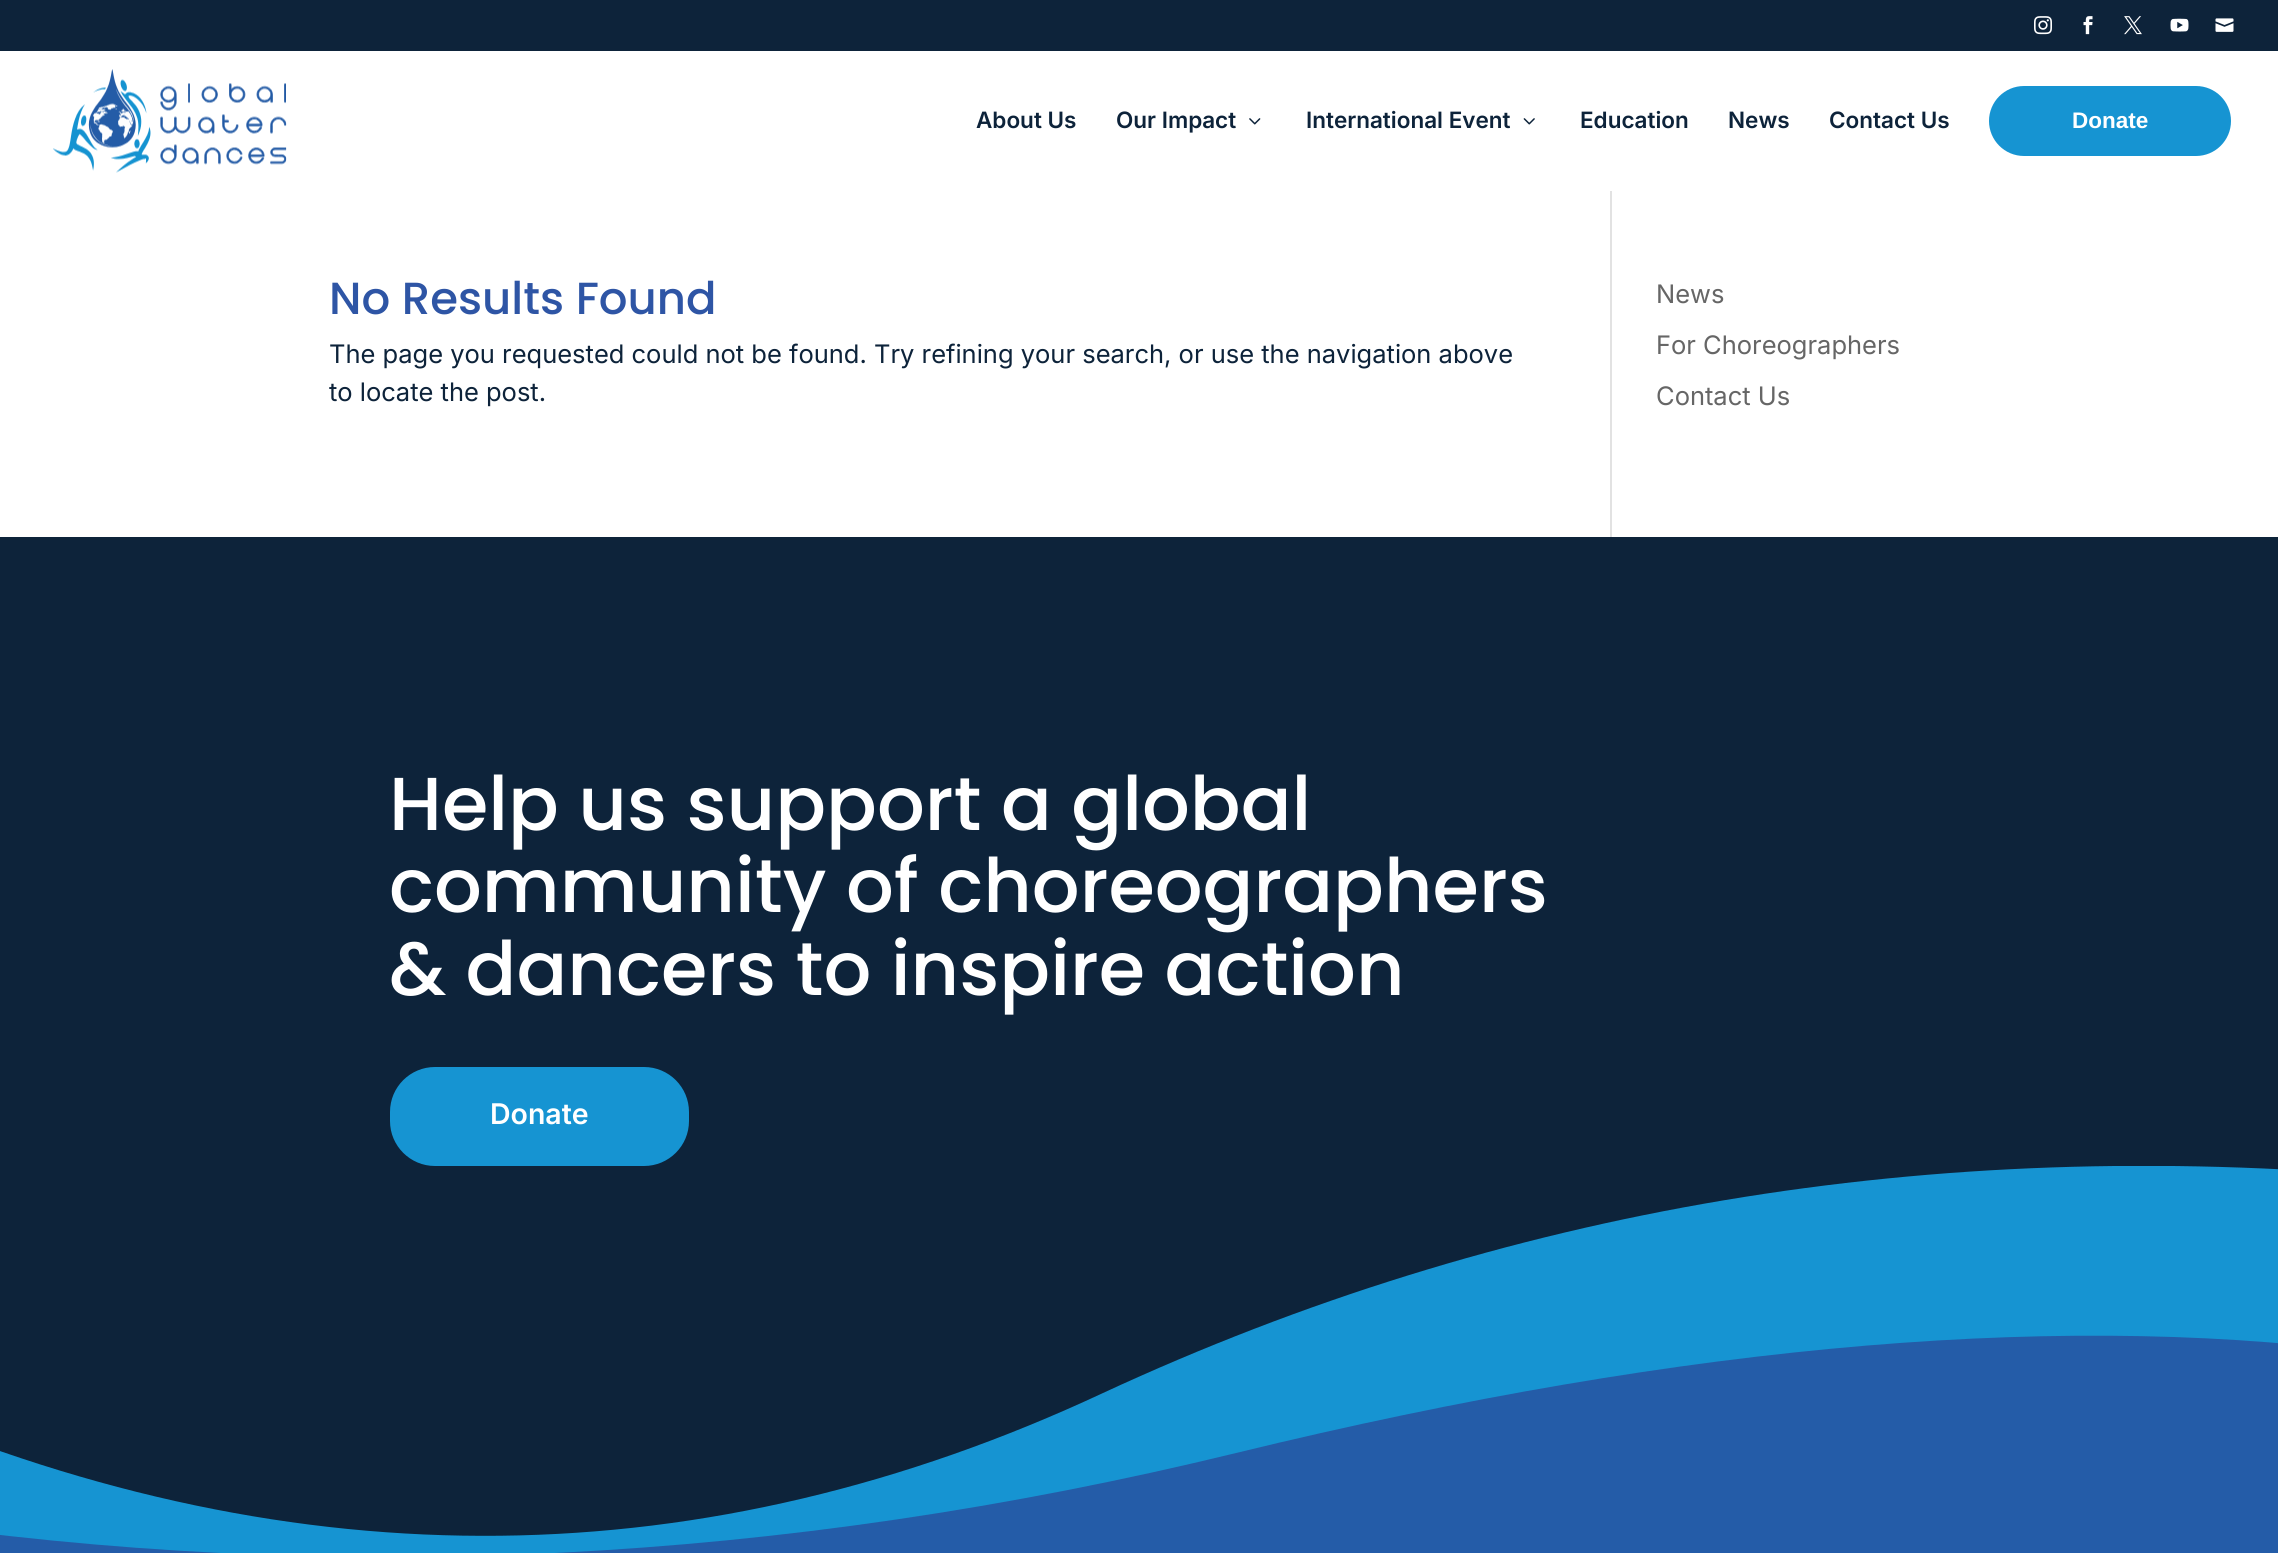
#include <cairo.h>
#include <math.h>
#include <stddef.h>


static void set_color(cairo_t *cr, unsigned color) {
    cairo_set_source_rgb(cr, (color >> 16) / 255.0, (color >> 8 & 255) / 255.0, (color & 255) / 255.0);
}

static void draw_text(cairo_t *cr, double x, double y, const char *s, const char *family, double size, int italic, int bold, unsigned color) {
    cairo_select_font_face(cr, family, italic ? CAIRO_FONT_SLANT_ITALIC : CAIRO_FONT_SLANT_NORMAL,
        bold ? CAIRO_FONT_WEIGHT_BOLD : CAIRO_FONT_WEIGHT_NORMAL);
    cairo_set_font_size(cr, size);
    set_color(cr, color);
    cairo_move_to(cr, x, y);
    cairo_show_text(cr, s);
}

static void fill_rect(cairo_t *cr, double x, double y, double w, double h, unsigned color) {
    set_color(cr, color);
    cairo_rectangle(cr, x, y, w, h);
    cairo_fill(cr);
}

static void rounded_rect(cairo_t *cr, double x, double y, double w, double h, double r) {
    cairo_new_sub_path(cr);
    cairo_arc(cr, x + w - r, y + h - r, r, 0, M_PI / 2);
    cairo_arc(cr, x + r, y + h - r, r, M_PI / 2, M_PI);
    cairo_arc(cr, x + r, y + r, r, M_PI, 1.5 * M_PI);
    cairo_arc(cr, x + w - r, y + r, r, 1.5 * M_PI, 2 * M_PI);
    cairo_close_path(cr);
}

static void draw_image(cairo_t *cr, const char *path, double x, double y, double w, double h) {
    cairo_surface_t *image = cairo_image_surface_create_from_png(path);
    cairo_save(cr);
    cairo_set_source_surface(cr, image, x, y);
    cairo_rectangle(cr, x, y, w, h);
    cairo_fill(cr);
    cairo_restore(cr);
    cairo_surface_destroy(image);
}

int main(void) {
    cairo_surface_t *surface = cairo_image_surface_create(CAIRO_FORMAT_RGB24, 2278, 1553);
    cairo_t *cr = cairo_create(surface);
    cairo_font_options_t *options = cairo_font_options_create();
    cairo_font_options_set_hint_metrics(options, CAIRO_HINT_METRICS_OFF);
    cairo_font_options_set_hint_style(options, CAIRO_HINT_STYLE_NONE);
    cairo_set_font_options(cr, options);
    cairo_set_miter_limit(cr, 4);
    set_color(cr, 0xFFFFFF);
    cairo_paint(cr);
    fill_rect(cr, 0, 0, 2278, 51, 0x0D233A);
    draw_image(cr, "assets/img1.png", 2034, 16, 18, 19);
    draw_image(cr, "assets/img2.png", 2083, 16, 10, 19);
    draw_image(cr, "assets/img3.png", 2124, 16, 18, 19);
    draw_image(cr, "assets/img4.png", 2170, 18, 19, 14);
    draw_image(cr, "assets/img5.png", 2215, 18, 19, 14);
    fill_rect(cr, 1610, 189, 2, 348, 0xE2E2E2);
    fill_rect(cr, 1610, 189, 2, 2, 0xFFFFFF);
    draw_image(cr, "assets/img6.png", 53, 69, 234, 104);
    draw_text(cr, 976, 128, "About Us", "Inter SemiBold", 22.5, 0, 0, 0x0D233A);
    draw_text(cr, 1116, 128, "Our Impact", "Inter SemiBold", 22.5, 0, 0, 0x0D233A);
    draw_image(cr, "assets/img7.png", 1249, 118, 12, 7);
    draw_text(cr, 1306, 128, "International Event", "Inter SemiBold", 22.5, 0, 0, 0x0D233A);
    draw_image(cr, "assets/img8.png", 1523, 118, 12, 7);
    draw_text(cr, 1580, 128, "Education", "Inter SemiBold", 22.5, 0, 0, 0x0D233A);
    draw_text(cr, 1728, 128, "News", "Inter SemiBold", 22.5, 0, 0, 0x0D233A);
    draw_text(cr, 1829, 128, "Contact Us", "Inter SemiBold", 22.5, 0, 0, 0x0D233A);
    set_color(cr, 0x1694D2);
    rounded_rect(cr, 1989, 86, 242, 70, 35);
    cairo_fill(cr);
    draw_text(cr, 2072, 128, "Donate", "Liberation Sans", 22.5, 0, 1, 0xFFFFFF);
    draw_text(cr, 329, 314, "No Results Found", "Poppins Medium", 45, 0, 0, 0x2E55A5);
    draw_text(cr, 329, 363, "The page you requested could not be found. Try refining your search, or use the navigation above", "Inter", 25.5, 0, 0, 0x0D233A);
    draw_text(cr, 329, 401, "to locate the post.", "Inter", 25.5, 0, 0, 0x0D233A);
    draw_text(cr, 1656, 303, "News", "Inter", 25.5, 0, 0, 0x666666);
    draw_text(cr, 1656, 354, "For Choreographers", "Inter", 25.5, 0, 0, 0x666666);
    draw_text(cr, 1656, 405, "Contact Us", "Inter", 25.5, 0, 0, 0x666666);
    fill_rect(cr, 0, 537, 2278, 999, 0x0D233A);
    draw_text(cr, 389, 830, "Help us support a global", "Poppins Medium", 75, 0, 0, 0xFFFFFF);
    draw_text(cr, 389, 912, "community of choreographers", "Poppins Medium", 75, 0, 0, 0xFFFFFF);
    draw_text(cr, 389, 995, "& dancers to inspire action", "Poppins Medium", 75, 0, 0, 0xFFFFFF);
    set_color(cr, 0x1694D2);
    rounded_rect(cr, 391.5, 1068.5, 296, 96, 43.5);
    cairo_fill_preserve(cr);
    cairo_set_line_width(cr, 3);
    cairo_stroke(cr);
    draw_text(cr, 490, 1124, "Donate", "Inter SemiBold", 28.5, 0, 0, 0xFFFFFF);
    cairo_save(cr);
    cairo_rectangle(cr, 0, 1166, 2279, 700);
    cairo_clip(cr);
    set_color(cr, 0x1694D2);
    cairo_set_fill_rule(cr, CAIRO_FILL_RULE_EVEN_ODD);
    cairo_new_path(cr);
    cairo_move_to(cr, 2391, 1177);
    cairo_curve_to(cr, 1931, 1136, 1502, 1208, 1103, 1393);
    cairo_curve_to(cr, 705, 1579, 299, 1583, -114, 1407);
    cairo_line_to(cr, -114, 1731);
    cairo_line_to(cr, 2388, 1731);
    cairo_fill(cr);
    cairo_restore(cr);
    set_color(cr, 0x245CA8);
    cairo_set_fill_rule(cr, CAIRO_FILL_RULE_EVEN_ODD);
    cairo_new_path(cr);
    cairo_move_to(cr, -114, 1520);
    cairo_curve_to(cr, 331, 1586, 781, 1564, 1236, 1453);
    cairo_curve_to(cr, 1691, 1342, 2076, 1310, 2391, 1356);
    cairo_line_to(cr, 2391, 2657);
    cairo_line_to(cr, -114, 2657);
    cairo_fill(cr);
    cairo_surface_write_to_png(surface, "output.png");
    cairo_font_options_destroy(options);
    cairo_destroy(cr);
    cairo_surface_destroy(surface);
    return 0;
}
